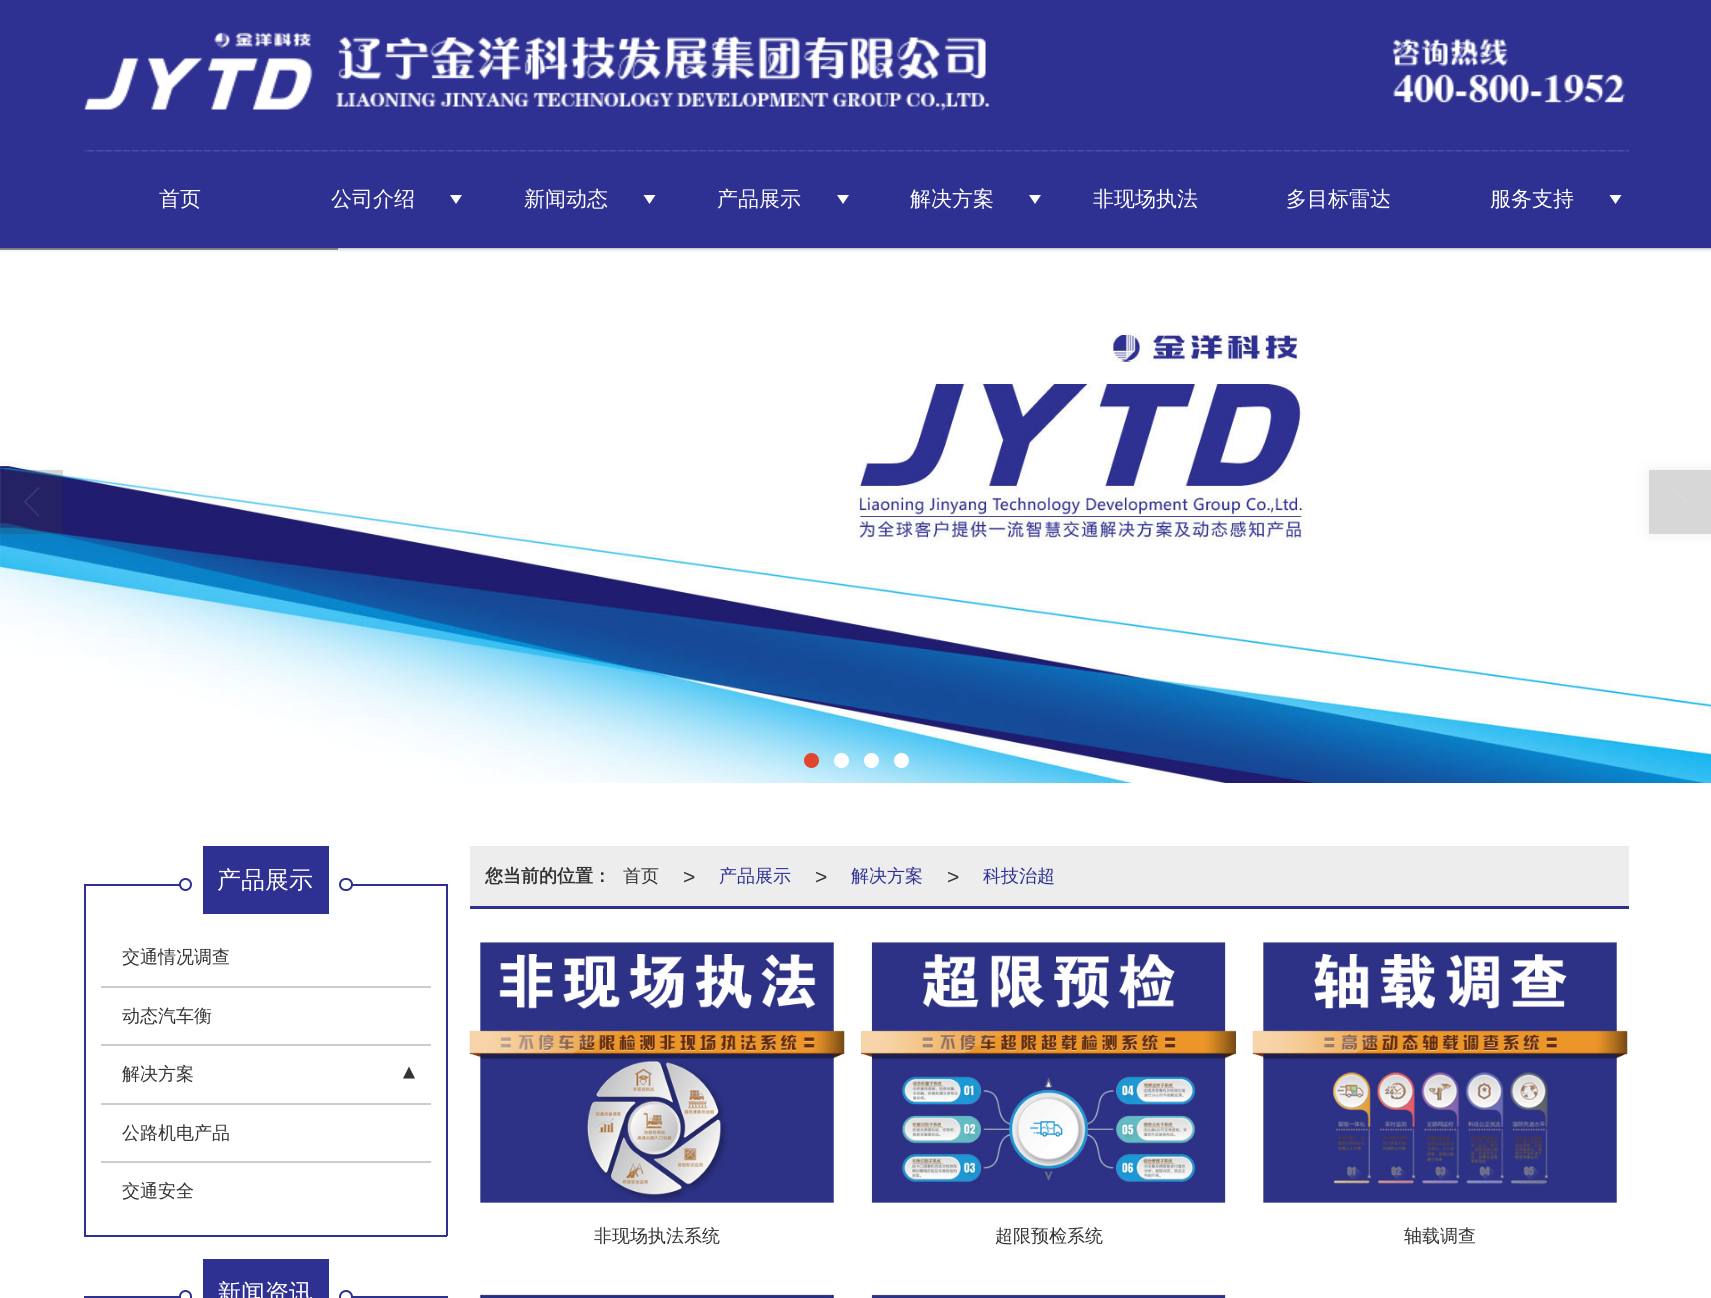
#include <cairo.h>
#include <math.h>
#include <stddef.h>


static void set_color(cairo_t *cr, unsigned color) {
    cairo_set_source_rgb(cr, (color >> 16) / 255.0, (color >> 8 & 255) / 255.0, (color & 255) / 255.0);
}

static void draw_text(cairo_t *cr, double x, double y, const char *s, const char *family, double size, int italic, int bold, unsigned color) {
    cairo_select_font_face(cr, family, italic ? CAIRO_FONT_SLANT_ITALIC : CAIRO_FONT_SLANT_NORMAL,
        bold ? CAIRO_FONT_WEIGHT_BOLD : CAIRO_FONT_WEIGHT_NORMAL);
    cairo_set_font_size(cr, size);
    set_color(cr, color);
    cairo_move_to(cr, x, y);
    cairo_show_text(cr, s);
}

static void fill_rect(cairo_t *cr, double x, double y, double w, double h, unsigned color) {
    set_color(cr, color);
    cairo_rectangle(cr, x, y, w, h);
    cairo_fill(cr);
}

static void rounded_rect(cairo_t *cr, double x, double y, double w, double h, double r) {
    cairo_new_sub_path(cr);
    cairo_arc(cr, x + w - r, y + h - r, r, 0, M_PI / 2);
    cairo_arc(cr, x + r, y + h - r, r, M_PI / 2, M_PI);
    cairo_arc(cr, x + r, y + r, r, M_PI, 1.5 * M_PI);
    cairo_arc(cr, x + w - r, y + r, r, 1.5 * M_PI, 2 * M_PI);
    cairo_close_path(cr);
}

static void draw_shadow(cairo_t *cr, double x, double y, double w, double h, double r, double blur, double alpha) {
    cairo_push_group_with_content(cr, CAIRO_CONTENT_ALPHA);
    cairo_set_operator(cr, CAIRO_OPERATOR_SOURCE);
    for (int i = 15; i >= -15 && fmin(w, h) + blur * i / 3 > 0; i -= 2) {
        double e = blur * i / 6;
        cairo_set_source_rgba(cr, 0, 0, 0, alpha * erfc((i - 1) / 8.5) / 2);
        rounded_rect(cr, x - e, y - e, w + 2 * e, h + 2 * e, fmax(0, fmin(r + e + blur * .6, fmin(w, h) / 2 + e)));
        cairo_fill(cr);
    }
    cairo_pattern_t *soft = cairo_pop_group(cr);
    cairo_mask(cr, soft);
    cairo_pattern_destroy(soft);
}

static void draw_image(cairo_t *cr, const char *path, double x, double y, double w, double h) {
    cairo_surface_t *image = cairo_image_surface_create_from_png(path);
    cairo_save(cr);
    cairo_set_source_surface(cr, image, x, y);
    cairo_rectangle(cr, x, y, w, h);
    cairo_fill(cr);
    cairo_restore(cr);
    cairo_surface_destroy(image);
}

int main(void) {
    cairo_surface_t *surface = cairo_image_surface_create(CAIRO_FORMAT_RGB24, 1711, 1298);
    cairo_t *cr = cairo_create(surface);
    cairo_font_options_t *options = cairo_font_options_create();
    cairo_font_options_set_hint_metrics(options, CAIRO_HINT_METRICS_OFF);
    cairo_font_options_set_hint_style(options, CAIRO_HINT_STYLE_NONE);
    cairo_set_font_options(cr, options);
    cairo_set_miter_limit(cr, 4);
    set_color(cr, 0xFFFFFF);
    cairo_paint(cr);
    fill_rect(cr, 0, 248, 338, 2, 0x999999);
    set_color(cr, 0x000000);
    draw_shadow(cr, 0, 0, 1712, 248, 0, 2, 0.5);
    fill_rect(cr, 0, 0, 1711, 248, 0x2E3092);
    draw_image(cr, "assets/img1.png", 83, 32, 1542, 79);
    draw_image(cr, "assets/img2.png", 83, 150, 1546, 2);
    draw_text(cr, 159, 206, "首页", "WenQuanYi Zen Hei Medium", 21, 0, 0, 0xFFFFFF);
    draw_text(cr, 331, 206, "公司介绍", "WenQuanYi Zen Hei Medium", 21, 0, 0, 0xFFFFFF);
    cairo_new_path(cr);
    cairo_move_to(cr, 450, 195);
    cairo_line_to(cr, 462, 195);
    cairo_line_to(cr, 456, 204);
    cairo_close_path(cr);
    cairo_fill(cr);
    draw_text(cr, 524, 206, "新闻动态", "WenQuanYi Zen Hei Medium", 21, 0, 0, 0xFFFFFF);
    cairo_new_path(cr);
    cairo_move_to(cr, 643.5, 195);
    cairo_line_to(cr, 655.5, 195);
    cairo_line_to(cr, 649.5, 204);
    cairo_close_path(cr);
    cairo_fill(cr);
    draw_text(cr, 717, 206, "产品展示", "WenQuanYi Zen Hei Medium", 21, 0, 0, 0xFFFFFF);
    cairo_new_path(cr);
    cairo_move_to(cr, 837, 195);
    cairo_line_to(cr, 849, 195);
    cairo_line_to(cr, 843, 204);
    cairo_close_path(cr);
    cairo_fill(cr);
    draw_text(cr, 910, 206, "解决方案", "WenQuanYi Zen Hei Medium", 21, 0, 0, 0xFFFFFF);
    cairo_new_path(cr);
    cairo_move_to(cr, 1029, 195);
    cairo_line_to(cr, 1041, 195);
    cairo_line_to(cr, 1035, 204);
    cairo_close_path(cr);
    cairo_fill(cr);
    draw_text(cr, 1093, 206, "非现场执法", "WenQuanYi Zen Hei Medium", 21, 0, 0, 0xFFFFFF);
    draw_text(cr, 1286, 206, "多目标雷达", "WenQuanYi Zen Hei Medium", 21, 0, 0, 0xFFFFFF);
    draw_text(cr, 1490, 206, "服务支持", "WenQuanYi Zen Hei Medium", 21, 0, 0, 0xFFFFFF);
    cairo_new_path(cr);
    cairo_move_to(cr, 1609.5, 195);
    cairo_line_to(cr, 1621.5, 195);
    cairo_line_to(cr, 1615.5, 204);
    cairo_close_path(cr);
    cairo_fill(cr);
    draw_image(cr, "assets/img3.png", 0, 333, 1711, 450);
    cairo_set_source_rgba(cr, 0.224, 0.224, 0.224, 0.2);
    cairo_rectangle(cr, 0, 470, 63, 64);
    cairo_fill(cr);
    draw_image(cr, "assets/img4.png", 24, 487, 16, 30);
    set_color(cr, 0xCCCCCC);
    draw_shadow(cr, 1649, 470, 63, 64, 0, 7.5, 0.3);
    fill_rect(cr, 1649, 470, 62, 64, 0xD7D7D7);
    draw_image(cr, "assets/img5.png", 1673, 488, 14, 14);
    set_color(cr, 0xE1472F);
    cairo_arc(cr, 811.5, 760.5, 7.5, 0, 2 * M_PI);
    cairo_fill(cr);
    set_color(cr, 0xFFFFFF);
    cairo_arc(cr, 841.5, 760.5, 7.5, 0, 2 * M_PI);
    cairo_fill(cr);
    cairo_arc(cr, 871.5, 760.5, 7.5, 0, 2 * M_PI);
    cairo_fill(cr);
    cairo_arc(cr, 901.5, 760.5, 7.5, 0, 2 * M_PI);
    cairo_fill(cr);
    fill_rect(cr, 446, 884, 2, 352, 0x2E3092);
    fill_rect(cr, 84, 1235, 363, 2, 0x2E3092);
    fill_rect(cr, 84, 884, 2, 352, 0x2E3092);
    fill_rect(cr, 84, 884, 363, 2, 0x2E3092);
    fill_rect(cr, 191, 884, 12, 2, 0xFFFFFF);
    cairo_arc(cr, 185.5, 884.5, 5.5, 0, 2 * M_PI);
    cairo_fill_preserve(cr);
    set_color(cr, 0x2E3092);
    cairo_stroke(cr);
    fill_rect(cr, 203, 846, 126, 68, 0x2E3092);
    fill_rect(cr, 329, 884, 12, 2, 0xFFFFFF);
    draw_text(cr, 217, 888, "产品展示", "WenQuanYi Zen Hei Medium", 24, 0, 0, 0xFFFFFF);
    rounded_rect(cr, 340, 879, 12, 11, 5.5);
    cairo_fill_preserve(cr);
    set_color(cr, 0x2E3092);
    cairo_stroke(cr);
    fill_rect(cr, 101, 986, 330, 2, 0xCCCCCC);
    draw_text(cr, 122, 963, "交通情况调查", "WenQuanYi Zen Hei Medium", 18, 0, 0, 0x333333);
    fill_rect(cr, 101, 1044, 330, 2, 0xCCCCCC);
    draw_text(cr, 122, 1022, "动态汽车衡", "WenQuanYi Zen Hei Medium", 18, 0, 0, 0x333333);
    fill_rect(cr, 101, 1103, 330, 2, 0xCCCCCC);
    draw_text(cr, 122, 1080, "解决方案", "WenQuanYi Zen Hei Medium", 18, 0, 0, 0x333333);
    cairo_new_path(cr);
    cairo_move_to(cr, 415, 1078.5);
    cairo_line_to(cr, 403, 1078.5);
    cairo_line_to(cr, 409, 1066.5);
    cairo_close_path(cr);
    cairo_fill(cr);
    fill_rect(cr, 101, 1161, 330, 2, 0xCCCCCC);
    draw_text(cr, 122, 1139, "公路机电产品", "WenQuanYi Zen Hei Medium", 18, 0, 0, 0x333333);
    draw_text(cr, 122, 1197, "交通安全", "WenQuanYi Zen Hei Medium", 18, 0, 0, 0x333333);
    fill_rect(cr, 84, 1296, 364, 2, 0x2E3092);
    fill_rect(cr, 191, 1296, 12, 2, 0xFFFFFF);
    rounded_rect(cr, 180, 1291, 11, 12, 5.5);
    cairo_fill_preserve(cr);
    set_color(cr, 0x2E3092);
    cairo_stroke(cr);
    fill_rect(cr, 203, 1259, 126, 37, 0x2E3092);
    fill_rect(cr, 329, 1296, 12, 2, 0xFFFFFF);
    draw_text(cr, 217, 1301, "新闻资讯", "WenQuanYi Zen Hei Medium", 24, 0, 0, 0xFFFFFF);
    cairo_new_path(cr);
    cairo_arc(cr, 346, 1297, 6, 0, 2 * M_PI);
    cairo_fill_preserve(cr);
    set_color(cr, 0x2E3092);
    cairo_stroke(cr);
    fill_rect(cr, 470, 846, 1159, 60, 0xEDEDED);
    fill_rect(cr, 470, 906, 1159, 3, 0x2E3092);
    draw_text(cr, 485, 882, "您当前的位置：", "WenQuanYi Zen Hei", 18, 0, 1, 0x333333);
    draw_text(cr, 623, 882, "首页", "WenQuanYi Zen Hei Medium", 18, 0, 0, 0x333333);
    draw_text(cr, 683, 884, ">", "Liberation Sans", 21, 0, 0, 0x333333);
    draw_text(cr, 719, 882, "产品展示", "WenQuanYi Zen Hei Medium", 18, 0, 0, 0x2E3092);
    draw_text(cr, 815, 884, ">", "Liberation Sans", 21, 0, 0, 0x333333);
    draw_text(cr, 851, 882, "解决方案", "WenQuanYi Zen Hei Medium", 18, 0, 0, 0x2E3092);
    draw_text(cr, 947, 884, ">", "Liberation Sans", 21, 0, 0, 0x333333);
    draw_text(cr, 983, 882, "科技治超", "WenQuanYi Zen Hei Medium", 18, 0, 0, 0x2E3092);
    draw_image(cr, "assets/img6.png", 469, 942, 376, 261);
    draw_text(cr, 594, 1242, "非现场执法系统", "WenQuanYi Zen Hei Medium", 18, 0, 0, 0x333333);
    draw_image(cr, "assets/img7.png", 861, 942, 375, 261);
    draw_text(cr, 995, 1242, "超限预检系统", "WenQuanYi Zen Hei Medium", 18, 0, 0, 0x333333);
    draw_image(cr, "assets/img8.png", 1252, 942, 376, 261);
    draw_text(cr, 1404, 1242, "轴载调查", "WenQuanYi Zen Hei Medium", 18, 0, 0, 0x333333);
    draw_image(cr, "assets/img9.png", 479, 1294, 356, 4);
    draw_image(cr, "assets/img10.png", 871, 1294, 355, 4);
    cairo_surface_write_to_png(surface, "output.png");
    cairo_font_options_destroy(options);
    cairo_destroy(cr);
    cairo_surface_destroy(surface);
    return 0;
}
